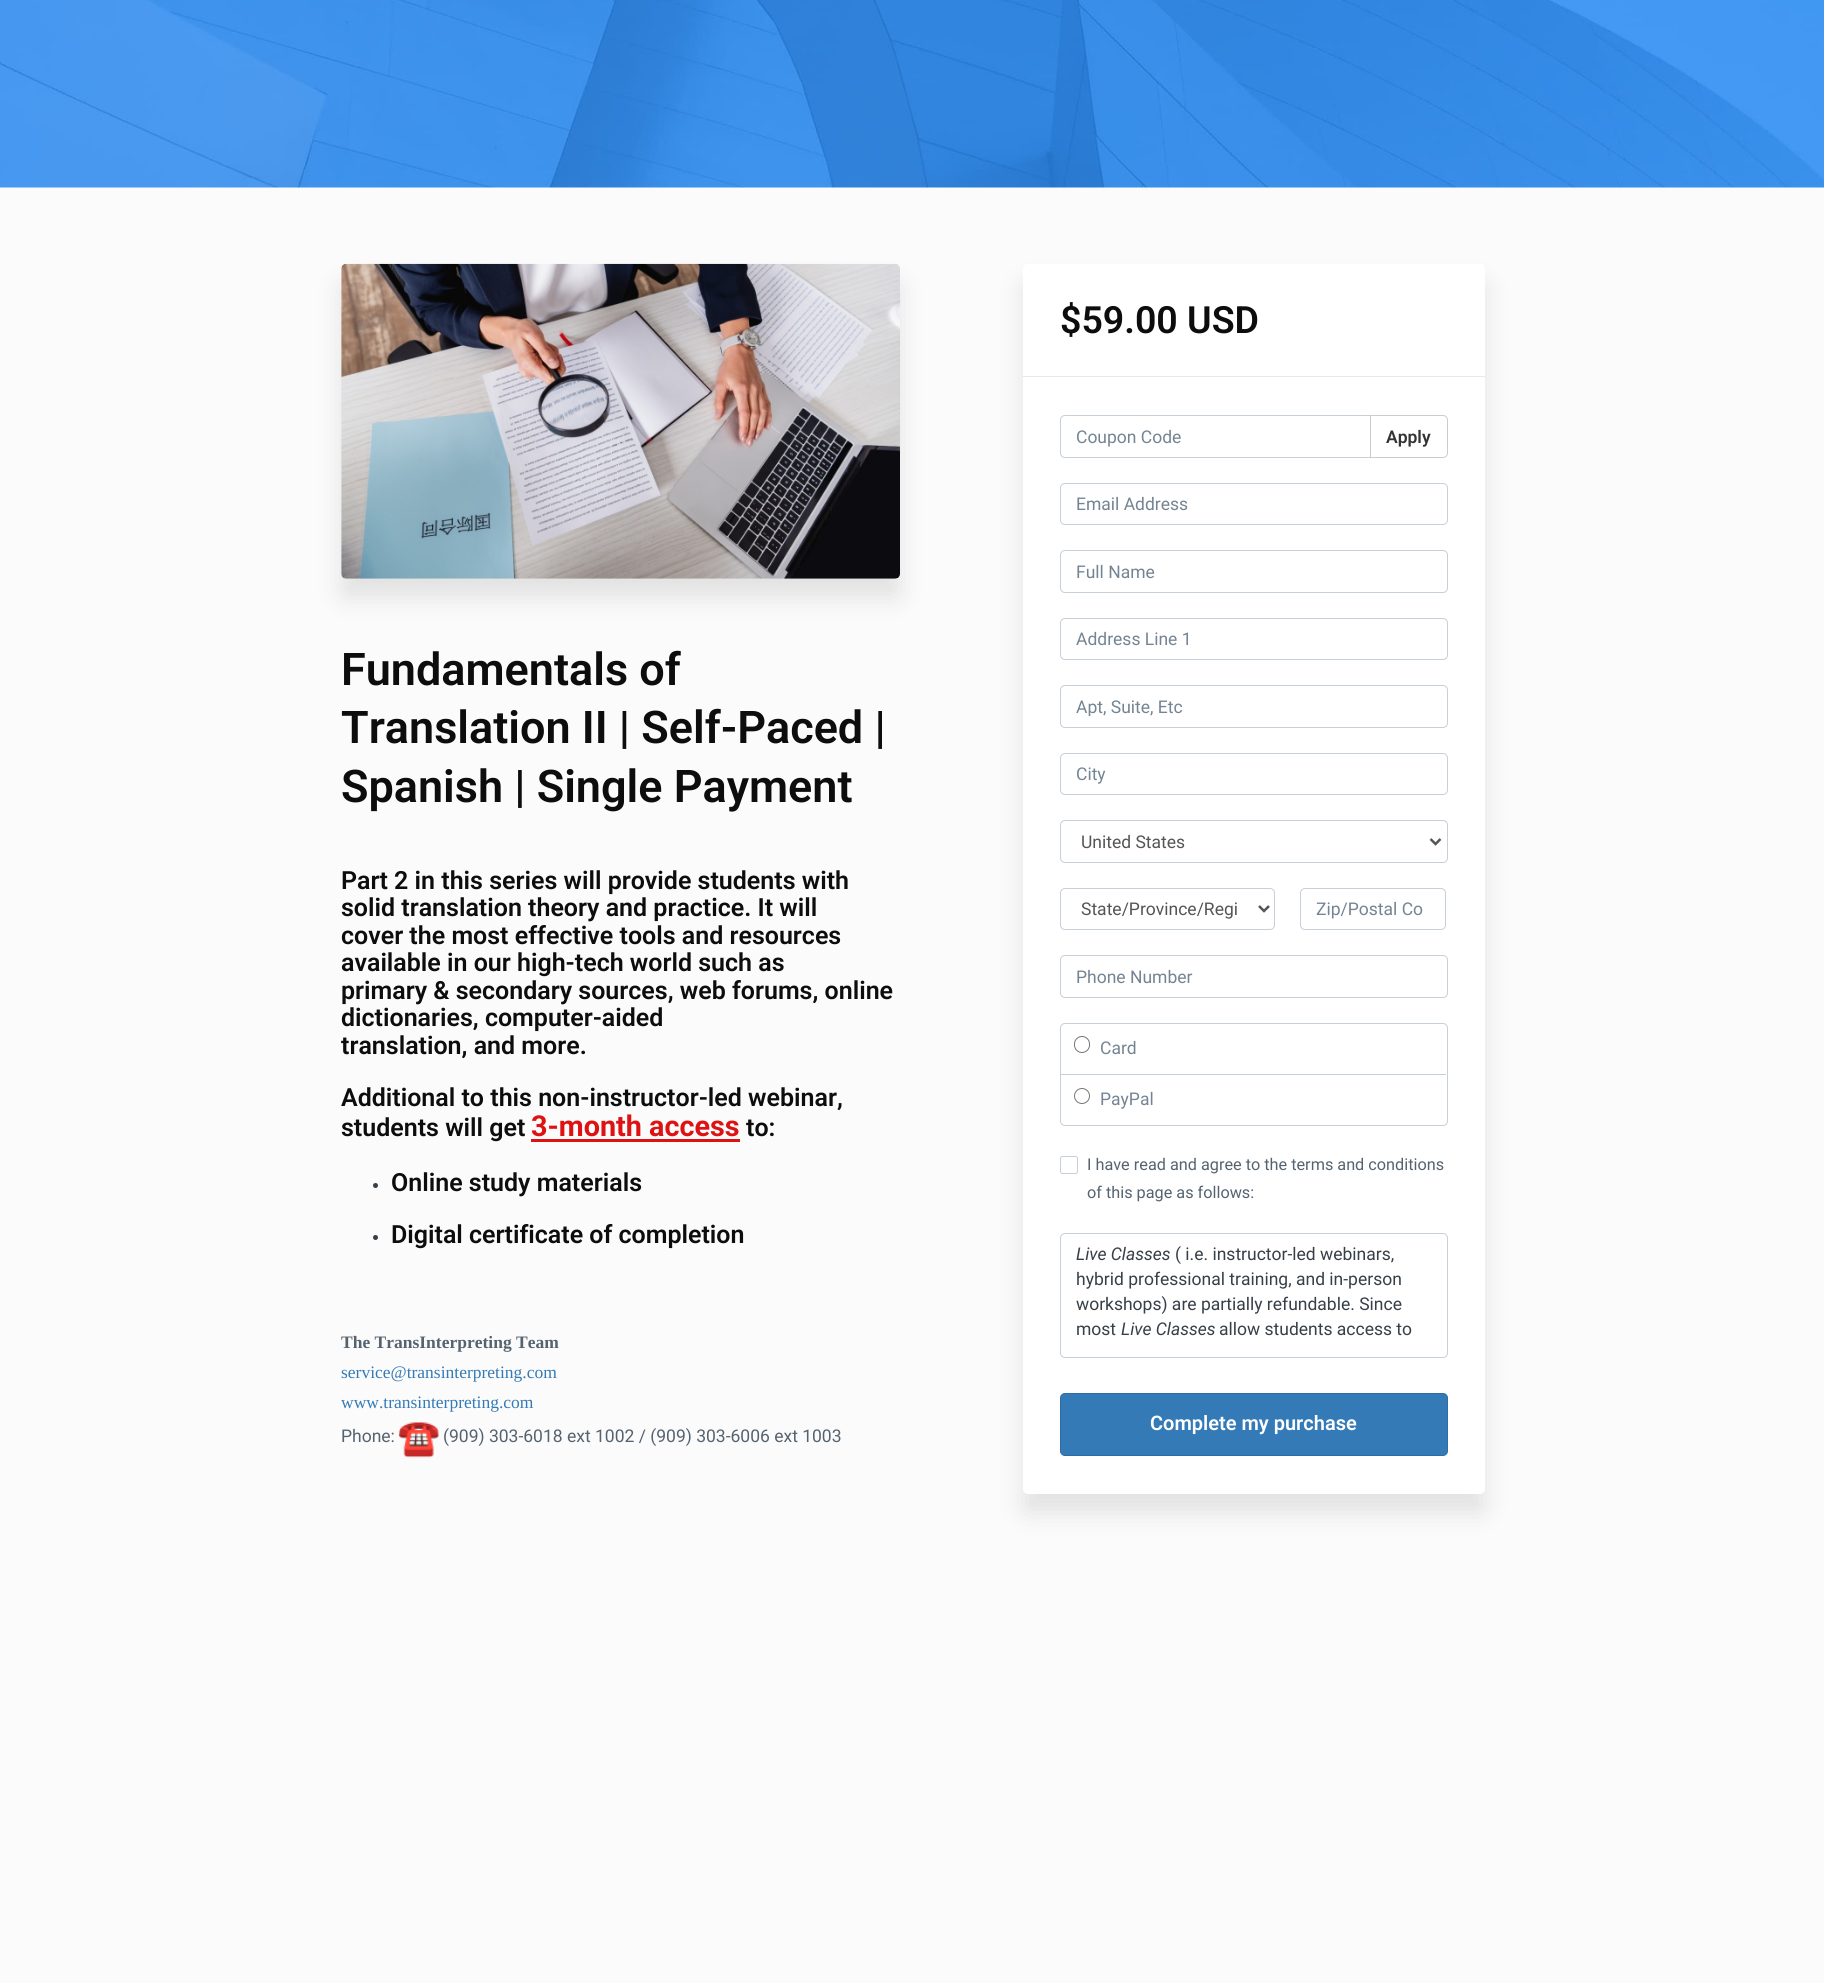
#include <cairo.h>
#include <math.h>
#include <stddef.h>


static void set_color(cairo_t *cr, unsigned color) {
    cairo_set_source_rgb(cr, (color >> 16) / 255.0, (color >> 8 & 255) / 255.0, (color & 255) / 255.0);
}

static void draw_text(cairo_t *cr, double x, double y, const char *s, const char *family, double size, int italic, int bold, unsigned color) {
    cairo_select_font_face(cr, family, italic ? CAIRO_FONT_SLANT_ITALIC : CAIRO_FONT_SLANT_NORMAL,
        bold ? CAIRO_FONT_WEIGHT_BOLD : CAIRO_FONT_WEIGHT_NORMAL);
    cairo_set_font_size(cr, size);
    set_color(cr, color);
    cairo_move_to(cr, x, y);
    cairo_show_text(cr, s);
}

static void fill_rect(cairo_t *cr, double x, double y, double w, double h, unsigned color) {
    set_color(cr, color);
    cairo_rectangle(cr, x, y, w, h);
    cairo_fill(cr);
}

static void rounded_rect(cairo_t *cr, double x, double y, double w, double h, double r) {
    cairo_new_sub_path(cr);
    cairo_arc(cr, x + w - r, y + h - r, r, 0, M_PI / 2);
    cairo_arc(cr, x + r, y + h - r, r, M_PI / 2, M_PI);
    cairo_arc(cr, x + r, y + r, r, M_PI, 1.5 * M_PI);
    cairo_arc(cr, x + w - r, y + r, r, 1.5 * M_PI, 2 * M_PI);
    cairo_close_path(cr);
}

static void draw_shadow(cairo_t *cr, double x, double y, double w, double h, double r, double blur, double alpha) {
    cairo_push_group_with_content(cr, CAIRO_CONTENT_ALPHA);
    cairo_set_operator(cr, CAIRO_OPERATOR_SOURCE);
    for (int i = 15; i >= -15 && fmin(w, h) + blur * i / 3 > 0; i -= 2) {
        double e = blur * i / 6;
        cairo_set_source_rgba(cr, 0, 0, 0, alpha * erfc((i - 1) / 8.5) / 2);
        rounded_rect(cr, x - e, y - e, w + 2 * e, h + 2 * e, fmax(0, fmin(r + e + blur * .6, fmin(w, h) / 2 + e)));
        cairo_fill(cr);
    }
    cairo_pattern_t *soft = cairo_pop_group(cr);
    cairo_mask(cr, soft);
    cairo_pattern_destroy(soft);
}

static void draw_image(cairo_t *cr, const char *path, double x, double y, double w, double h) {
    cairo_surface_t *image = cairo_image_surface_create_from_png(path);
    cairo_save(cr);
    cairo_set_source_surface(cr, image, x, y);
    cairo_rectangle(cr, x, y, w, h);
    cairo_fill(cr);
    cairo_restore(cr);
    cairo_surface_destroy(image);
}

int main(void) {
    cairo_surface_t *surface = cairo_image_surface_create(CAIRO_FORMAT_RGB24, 1824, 1983);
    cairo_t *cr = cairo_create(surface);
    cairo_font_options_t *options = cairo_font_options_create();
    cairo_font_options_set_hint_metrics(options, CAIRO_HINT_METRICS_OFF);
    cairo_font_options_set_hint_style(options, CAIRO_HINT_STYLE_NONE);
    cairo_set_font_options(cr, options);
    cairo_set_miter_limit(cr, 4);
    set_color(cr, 0xFBFBFB);
    cairo_paint(cr);
    draw_image(cr, "assets/img1.png", 0, 0, 1824, 188);
    set_color(cr, 0x000000);
    draw_shadow(cr, 341, 283, 559, 315, 5, 12.5, 0.1);
    draw_image(cr, "assets/img2.png", 341, 263, 559, 316);
    draw_text(cr, 341, 685, "Fundamentals of", "Roboto SemiBold", 45, 0, 0, 0x0D0D0D);
    draw_text(cr, 341, 743, "Translation II | Self-Paced |", "Roboto SemiBold", 45, 0, 0, 0x0D0D0D);
    draw_text(cr, 341, 802, "Spanish | Single Payment", "Roboto SemiBold", 45, 0, 0, 0x0D0D0D);
    draw_text(cr, 341, 889, "Part 2 in this series will provide students with", "Roboto SemiBold", 25, 0, 0, 0x0D0D0D);
    draw_text(cr, 341, 916, "solid translation theory and practice. It will", "Roboto SemiBold", 25, 0, 0, 0x0D0D0D);
    draw_text(cr, 341, 944, "cover the most effective tools and resources", "Roboto SemiBold", 25, 0, 0, 0x0D0D0D);
    draw_text(cr, 341, 971, "available in our high-tech world such as", "Roboto SemiBold", 25, 0, 0, 0x0D0D0D);
    draw_text(cr, 341, 999, "primary & secondary sources, web forums, online", "Roboto SemiBold", 25, 0, 0, 0x0D0D0D);
    draw_text(cr, 341, 1026, "dictionaries, computer-aided", "Roboto SemiBold", 25, 0, 0, 0x0D0D0D);
    draw_text(cr, 341, 1054, "translation, and more.", "Roboto SemiBold", 25, 0, 0, 0x0D0D0D);
    draw_text(cr, 341, 1106, "Additional to this non-instructor-led webinar,", "Roboto SemiBold", 25, 0, 0, 0x0D0D0D);
    draw_text(cr, 341, 1136, "students will get", "Roboto SemiBold", 25, 0, 0, 0x0D0D0D);
    draw_text(cr, 531, 1136, "3-month access", "Roboto", 28.75, 0, 1, 0xDE1212);
    fill_rect(cr, 531, 1139, 209, 3, 0xDE1212);
    draw_text(cr, 746, 1136, "to:", "Roboto SemiBold", 25, 0, 0, 0x0D0D0D);
    set_color(cr, 0x373F47);
    cairo_new_path(cr);
    cairo_arc(cr, 375.5, 1185.5, 2.5, 0, 2 * M_PI);
    cairo_fill(cr);
    draw_text(cr, 391, 1191, "Online study materials", "Roboto SemiBold", 25, 0, 0, 0x0D0D0D);
    set_color(cr, 0x373F47);
    cairo_new_path(cr);
    cairo_arc(cr, 375.5, 1237.5, 2.5, 0, 2 * M_PI);
    cairo_fill(cr);
    draw_text(cr, 391, 1243, "Digital certificate of completion", "Roboto SemiBold", 25, 0, 0, 0x0D0D0D);
    draw_text(cr, 341, 1348, "The TransInterpreting Team", "Liberation Serif", 17.5, 0, 1, 0x556370);
    draw_text(cr, 341, 1378, "service@transinterpreting.com", "Liberation Serif", 17.5, 0, 0, 0x337AB7);
    draw_text(cr, 341, 1408, "www.transinterpreting.com", "Liberation Serif", 17.5, 0, 0, 0x337AB7);
    draw_text(cr, 341, 1442, "Phone:", "Roboto", 17.5, 0, 0, 0x556370);
    draw_image(cr, "assets/img3.png", 398, 1422, 41, 36);
    draw_text(cr, 443, 1442, "(909) 303-6018 ext 1002 / (909) 303-6006 ext 1003", "Roboto", 17.5, 0, 0, 0x556370);
    set_color(cr, 0x000000);
    draw_shadow(cr, 1023, 283, 462, 1230, 5, 12.5, 0.1);
    set_color(cr, 0xFFFFFF);
    rounded_rect(cr, 1023, 264, 462, 1230, 5);
    cairo_fill(cr);
    fill_rect(cr, 1023, 376, 462, 1, 0xE5E9E9);
    draw_text(cr, 1060, 333, "$59.00 USD", "Roboto SemiBold", 37.5, 0, 0, 0x0D0D0D);
    cairo_new_path(cr);
    cairo_move_to(cr, 1065, 415.5);
    cairo_line_to(cr, 1370.5, 415.5);
    cairo_line_to(cr, 1370.5, 457.5);
    cairo_line_to(cr, 1065, 457.5);
    cairo_curve_to(cr, 1062.5, 457.5, 1060.5, 455.5, 1060.5, 453);
    cairo_line_to(cr, 1060.5, 420);
    cairo_curve_to(cr, 1060.5, 417.5, 1062.5, 415.5, 1065, 415.5);
    cairo_close_path(cr);
    set_color(cr, 0xC7CFD8);
    cairo_set_line_width(cr, 1);
    cairo_stroke(cr);
    draw_text(cr, 1076, 443, "Coupon Code", "Roboto", 17.5, 0, 0, 0x748493);
    set_color(cr, 0xFFFFFF);
    cairo_new_path(cr);
    cairo_move_to(cr, 1370.5, 415.5);
    cairo_line_to(cr, 1443, 415.5);
    cairo_curve_to(cr, 1445.5, 415.5, 1447.5, 417.5, 1447.5, 420);
    cairo_line_to(cr, 1447.5, 453);
    cairo_curve_to(cr, 1447.5, 455.5, 1445.5, 457.5, 1443, 457.5);
    cairo_line_to(cr, 1370.5, 457.5);
    cairo_close_path(cr);
    cairo_fill_preserve(cr);
    set_color(cr, 0xCCCCCC);
    cairo_stroke(cr);
    draw_text(cr, 1386, 443, "Apply", "Roboto SemiBold", 17.5, 0, 0, 0x333333);
    rounded_rect(cr, 1060.5, 483.5, 387, 41, 4.5);
    set_color(cr, 0xC7CFD8);
    cairo_stroke(cr);
    draw_text(cr, 1076, 510, "Email Address", "Roboto", 17.5, 0, 0, 0x748493);
    rounded_rect(cr, 1060.5, 550.5, 387, 42, 4.5);
    set_color(cr, 0xC7CFD8);
    cairo_stroke(cr);
    draw_text(cr, 1076, 578, "Full Name", "Roboto", 17.5, 0, 0, 0x748493);
    rounded_rect(cr, 1060.5, 618.5, 387, 41, 4.5);
    set_color(cr, 0xC7CFD8);
    cairo_stroke(cr);
    draw_text(cr, 1076, 645, "Address Line 1", "Roboto", 17.5, 0, 0, 0x748493);
    rounded_rect(cr, 1060.5, 685.5, 387, 42, 4.5);
    set_color(cr, 0xC7CFD8);
    cairo_stroke(cr);
    cairo_save(cr);
    cairo_rectangle(cr, 1076, 696, 355, 20);
    cairo_clip(cr);
    draw_text(cr, 1076, 713, "Apt, Suite, Etc", "Roboto", 17.5, 0, 0, 0x748493);
    cairo_restore(cr);
    rounded_rect(cr, 1060.5, 753.5, 387, 41, 4.5);
    cairo_stroke(cr);
    draw_text(cr, 1076, 780, "City", "Roboto", 17.5, 0, 0, 0x748493);
    rounded_rect(cr, 1060.5, 820.5, 387, 42, 4.5);
    set_color(cr, 0xC7CFD8);
    cairo_stroke(cr);
    cairo_new_path(cr);
    cairo_move_to(cr, 1430.5, 839);
    cairo_line_to(cr, 1435.5, 844);
    cairo_line_to(cr, 1440.5, 839);
    set_color(cr, 0x555555);
    cairo_set_line_width(cr, 2.5);
    cairo_stroke(cr);
    draw_text(cr, 1081, 848, "United States", "Roboto", 17.5, 0, 0, 0x555555);
    rounded_rect(cr, 1060.5, 888.5, 214, 41, 4.5);
    set_color(cr, 0xC7CFD8);
    cairo_set_line_width(cr, 1);
    cairo_stroke(cr);
    cairo_new_path(cr);
    cairo_move_to(cr, 1259, 906);
    cairo_line_to(cr, 1264, 911);
    cairo_line_to(cr, 1269, 906);
    set_color(cr, 0x555555);
    cairo_set_line_width(cr, 2.5);
    cairo_stroke(cr);
    draw_text(cr, 1081, 915, "State/Province/Regi", "Roboto", 17.5, 0, 0, 0x555555);
    rounded_rect(cr, 1300.5, 888.5, 145, 41, 4.5);
    set_color(cr, 0xC7CFD8);
    cairo_set_line_width(cr, 1);
    cairo_stroke(cr);
    draw_text(cr, 1316, 915, "Zip/Postal Co", "Roboto", 17.5, 0, 0, 0x748493);
    rounded_rect(cr, 1060.5, 955.5, 387, 42, 4.5);
    set_color(cr, 0xC7CFD8);
    cairo_stroke(cr);
    draw_text(cr, 1076, 983, "Phone Number", "Roboto", 17.5, 0, 0, 0x748493);
    rounded_rect(cr, 1060.5, 1023.5, 387, 102, 4.5);
    set_color(cr, 0xC7CFD8);
    cairo_stroke(cr);
    fill_rect(cr, 1061, 1074, 385, 1, 0xC7CFD8);
    rounded_rect(cr, 1074.5, 1036.5, 15, 16, 7.5);
    set_color(cr, 0x767676);
    cairo_stroke(cr);
    draw_text(cr, 1100, 1054, "Card", "Roboto", 17.5, 0, 0, 0x748493);
    cairo_new_path(cr);
    cairo_arc(cr, 1082, 1096, 7.5, 0, 2 * M_PI);
    set_color(cr, 0x767676);
    cairo_stroke(cr);
    draw_text(cr, 1100, 1105, "PayPal", "Roboto", 17.5, 0, 0, 0x748493);
    rounded_rect(cr, 1060.5, 1156.5, 17, 17, 2);
    set_color(cr, 0xC7CFD8);
    cairo_stroke(cr);
    draw_text(cr, 1087, 1170, "I have read and agree to the terms and conditions", "Roboto", 16.25, 0, 0, 0x556370);
    draw_text(cr, 1087, 1198, "of this page as follows:", "Roboto", 16.25, 0, 0, 0x556370);
    rounded_rect(cr, 1060.5, 1233.5, 387, 124, 4.5);
    set_color(cr, 0xC7CFD8);
    cairo_stroke(cr);
    draw_text(cr, 1076, 1260, "Live Classes", "Roboto", 17.5, 1, 0, 0x373F47);
    draw_text(cr, 1175, 1260, "( i.e. instructor-led webinars,", "Roboto", 17.5, 0, 0, 0x373F47);
    draw_text(cr, 1076, 1285, "hybrid professional training, and in-person", "Roboto", 17.5, 0, 0, 0x373F47);
    draw_text(cr, 1076, 1310, "workshops) are partially refundable. Since", "Roboto", 17.5, 0, 0, 0x373F47);
    draw_text(cr, 1076, 1335, "most", "Roboto", 17.5, 0, 0, 0x373F47);
    draw_text(cr, 1121, 1335, "Live Classes", "Roboto", 17.5, 1, 0, 0x373F47);
    draw_text(cr, 1219, 1335, "allow students access to", "Roboto", 17.5, 0, 0, 0x373F47);
    set_color(cr, 0x337AB7);
    rounded_rect(cr, 1060.5, 1393.5, 387, 62, 4.5);
    cairo_fill_preserve(cr);
    set_color(cr, 0x2E6DA4);
    cairo_stroke(cr);
    draw_text(cr, 1150, 1430, "Complete my purchase", "Roboto SemiBold", 20, 0, 0, 0xFFFFFF);
    cairo_surface_write_to_png(surface, "output.png");
    cairo_font_options_destroy(options);
    cairo_destroy(cr);
    cairo_surface_destroy(surface);
    return 0;
}
